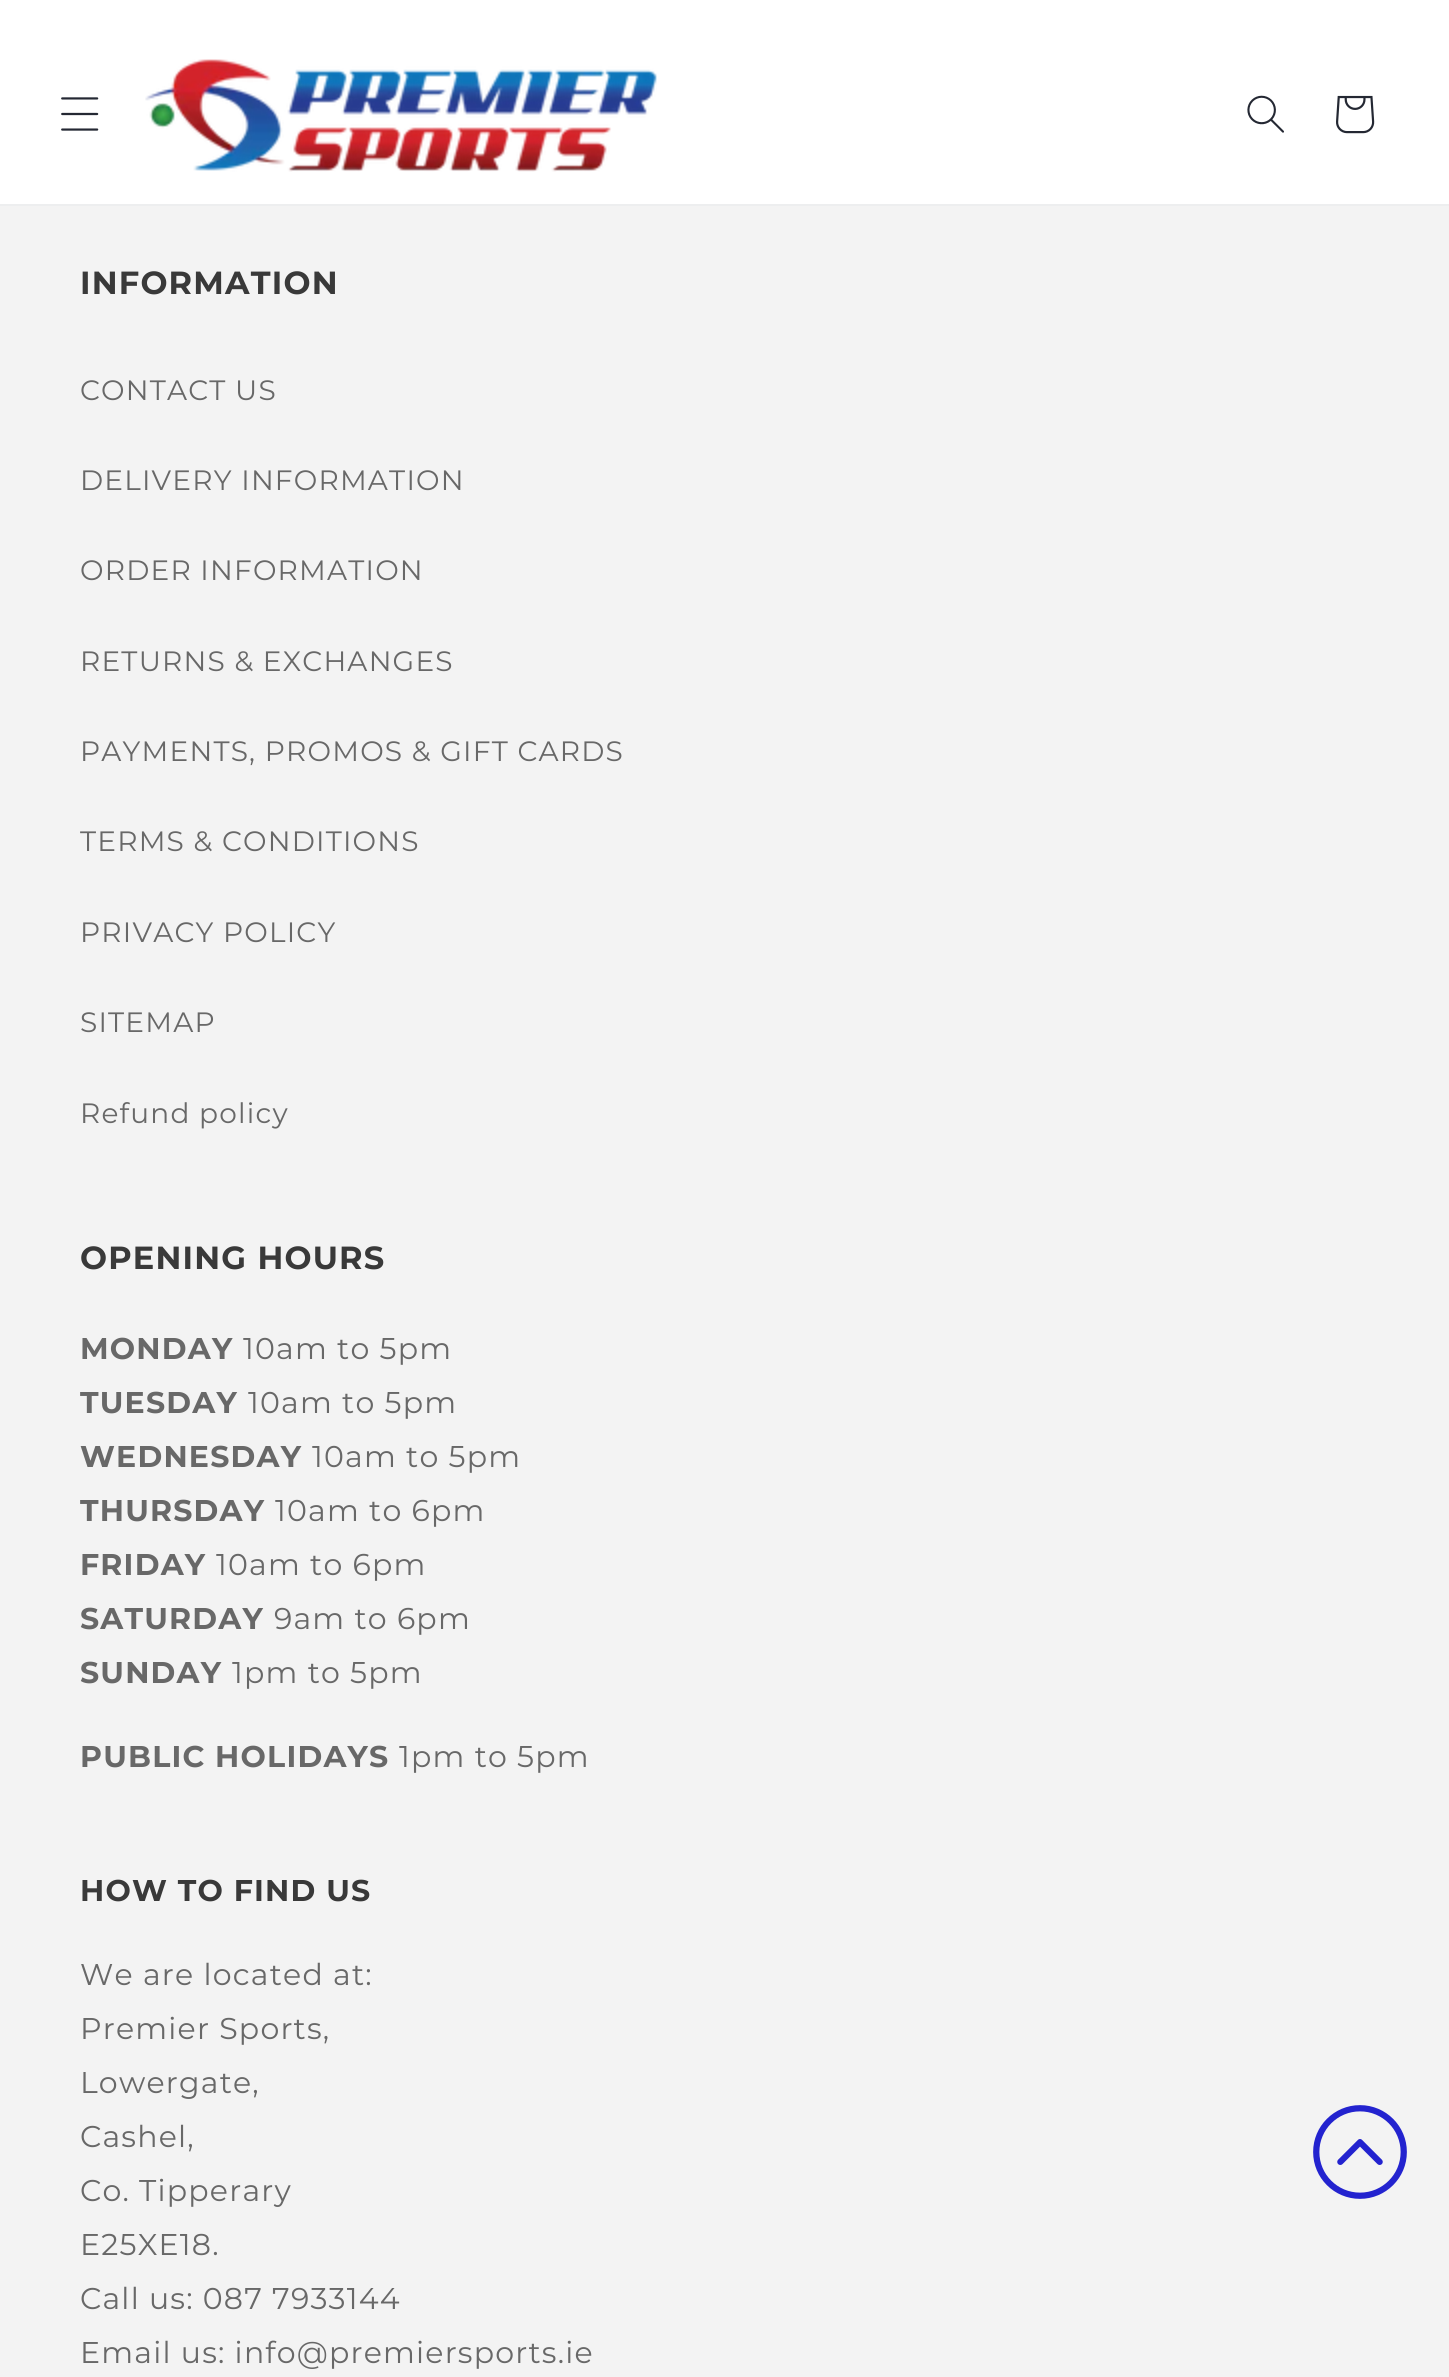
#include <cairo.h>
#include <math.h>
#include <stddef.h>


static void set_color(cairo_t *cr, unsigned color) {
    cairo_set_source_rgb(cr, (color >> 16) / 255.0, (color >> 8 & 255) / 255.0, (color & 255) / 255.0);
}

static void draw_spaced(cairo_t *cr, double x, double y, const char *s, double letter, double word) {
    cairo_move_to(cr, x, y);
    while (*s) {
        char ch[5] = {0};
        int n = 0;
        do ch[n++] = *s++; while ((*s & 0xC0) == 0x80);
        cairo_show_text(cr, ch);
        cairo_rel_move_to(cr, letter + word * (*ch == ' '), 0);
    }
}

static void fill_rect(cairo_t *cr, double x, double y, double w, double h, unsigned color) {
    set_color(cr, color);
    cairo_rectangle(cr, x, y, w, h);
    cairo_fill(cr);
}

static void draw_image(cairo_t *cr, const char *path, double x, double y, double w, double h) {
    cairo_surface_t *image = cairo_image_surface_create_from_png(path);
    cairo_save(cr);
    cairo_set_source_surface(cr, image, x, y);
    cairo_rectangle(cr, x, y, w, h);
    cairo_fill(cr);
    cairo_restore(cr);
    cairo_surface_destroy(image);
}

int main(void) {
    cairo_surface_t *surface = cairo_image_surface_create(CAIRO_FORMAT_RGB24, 1449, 2377);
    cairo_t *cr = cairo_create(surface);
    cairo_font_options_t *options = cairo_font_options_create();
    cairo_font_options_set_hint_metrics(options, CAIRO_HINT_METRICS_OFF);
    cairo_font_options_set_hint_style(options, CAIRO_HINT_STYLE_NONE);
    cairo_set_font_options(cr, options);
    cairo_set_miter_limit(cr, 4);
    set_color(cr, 0xF3F3F3);
    cairo_paint(cr);
    fill_rect(cr, 0, 0, 1449, 204, 0xFFFFFF);
    fill_rect(cr, 0, 204, 1449, 2, 0xEDEEEF);
    draw_image(cr, "assets/img1.png", 61, 97, 38, 34);
    draw_image(cr, "assets/img2.png", 145, 59, 512, 113);
    draw_image(cr, "assets/img3.png", 1247, 95, 37, 38);
    draw_image(cr, "assets/img4.png", 1336, 95, 39, 39);
    cairo_select_font_face(cr, "Montserrat", CAIRO_FONT_SLANT_NORMAL, CAIRO_FONT_WEIGHT_BOLD);
    cairo_set_font_size(cr, 32);
    set_color(cr, 0x393939);
    draw_spaced(cr, 80, 294, "INFORMATION", 1.2, 0);
    cairo_select_font_face(cr, "Montserrat Thin", CAIRO_FONT_SLANT_NORMAL, CAIRO_FONT_WEIGHT_NORMAL);
    cairo_set_font_size(cr, 28);
    set_color(cr, 0x686868);
    draw_spaced(cr, 80, 400, "CONTACT US", 1.2, 0);
    draw_spaced(cr, 80, 490, "DELIVERY INFORMATION", 1.2, 0);
    draw_spaced(cr, 80, 580, "ORDER INFORMATION", 1.2, 0);
    draw_spaced(cr, 80, 671, "RETURNS & EXCHANGES", 1.2, 0);
    draw_spaced(cr, 80, 761, "PAYMENTS, PROMOS & GIFT CARDS", 1.2, 0);
    draw_spaced(cr, 80, 851, "TERMS & CONDITIONS", 1.2, 0);
    draw_spaced(cr, 80, 942, "PRIVACY POLICY", 1.2, 0);
    draw_spaced(cr, 80, 1032, "SITEMAP", 1.2, 0);
    draw_spaced(cr, 80, 1123, "Refund policy", 1.2, 0);
    cairo_select_font_face(cr, "Montserrat", CAIRO_FONT_SLANT_NORMAL, CAIRO_FONT_WEIGHT_BOLD);
    cairo_set_font_size(cr, 32);
    set_color(cr, 0x393939);
    draw_spaced(cr, 80, 1269, "OPENING HOURS", 1.2, 0);
    cairo_set_font_size(cr, 30);
    set_color(cr, 0x686868);
    draw_spaced(cr, 80, 1359, "MONDAY", 1.2, 0);
    cairo_select_font_face(cr, "Montserrat Thin", CAIRO_FONT_SLANT_NORMAL, CAIRO_FONT_WEIGHT_NORMAL);
    draw_spaced(cr, 243, 1359, "10am to 5pm", 1.2, 0);
    cairo_select_font_face(cr, "Montserrat", CAIRO_FONT_SLANT_NORMAL, CAIRO_FONT_WEIGHT_BOLD);
    draw_spaced(cr, 80, 1413, "TUESDAY", 1.2, 0);
    cairo_select_font_face(cr, "Montserrat Thin", CAIRO_FONT_SLANT_NORMAL, CAIRO_FONT_WEIGHT_NORMAL);
    draw_spaced(cr, 248, 1413, "10am to 5pm", 1.2, 0);
    cairo_select_font_face(cr, "Montserrat", CAIRO_FONT_SLANT_NORMAL, CAIRO_FONT_WEIGHT_BOLD);
    draw_spaced(cr, 80, 1467, "WEDNESDAY", 1.2, 0);
    cairo_select_font_face(cr, "Montserrat Thin", CAIRO_FONT_SLANT_NORMAL, CAIRO_FONT_WEIGHT_NORMAL);
    draw_spaced(cr, 312, 1467, "10am to 5pm", 1.2, 0);
    cairo_select_font_face(cr, "Montserrat", CAIRO_FONT_SLANT_NORMAL, CAIRO_FONT_WEIGHT_BOLD);
    draw_spaced(cr, 80, 1521, "THURSDAY", 1.2, 0);
    cairo_select_font_face(cr, "Montserrat Thin", CAIRO_FONT_SLANT_NORMAL, CAIRO_FONT_WEIGHT_NORMAL);
    draw_spaced(cr, 275, 1521, "10am to 6pm", 1.2, 0);
    cairo_select_font_face(cr, "Montserrat", CAIRO_FONT_SLANT_NORMAL, CAIRO_FONT_WEIGHT_BOLD);
    draw_spaced(cr, 80, 1575, "FRIDAY", 1.2, 0);
    cairo_select_font_face(cr, "Montserrat Thin", CAIRO_FONT_SLANT_NORMAL, CAIRO_FONT_WEIGHT_NORMAL);
    draw_spaced(cr, 216, 1575, "10am to 6pm", 1.2, 0);
    cairo_select_font_face(cr, "Montserrat", CAIRO_FONT_SLANT_NORMAL, CAIRO_FONT_WEIGHT_BOLD);
    draw_spaced(cr, 80, 1629, "SATURDAY", 1.2, 0);
    cairo_select_font_face(cr, "Montserrat Thin", CAIRO_FONT_SLANT_NORMAL, CAIRO_FONT_WEIGHT_NORMAL);
    draw_spaced(cr, 274, 1629, "9am to 6pm", 1.2, 0);
    cairo_select_font_face(cr, "Montserrat", CAIRO_FONT_SLANT_NORMAL, CAIRO_FONT_WEIGHT_BOLD);
    draw_spaced(cr, 80, 1683, "SUNDAY", 1.2, 0);
    cairo_select_font_face(cr, "Montserrat Thin", CAIRO_FONT_SLANT_NORMAL, CAIRO_FONT_WEIGHT_NORMAL);
    draw_spaced(cr, 232, 1683, "1pm to 5pm", 1.2, 0);
    cairo_select_font_face(cr, "Montserrat", CAIRO_FONT_SLANT_NORMAL, CAIRO_FONT_WEIGHT_BOLD);
    draw_spaced(cr, 80, 1767, "PUBLIC HOLIDAYS", 1.2, 0);
    cairo_select_font_face(cr, "Montserrat Thin", CAIRO_FONT_SLANT_NORMAL, CAIRO_FONT_WEIGHT_NORMAL);
    draw_spaced(cr, 399, 1767, "1pm to 5pm", 1.2, 0);
    cairo_select_font_face(cr, "Montserrat", CAIRO_FONT_SLANT_NORMAL, CAIRO_FONT_WEIGHT_BOLD);
    set_color(cr, 0x393939);
    draw_spaced(cr, 80, 1901, "HOW TO FIND US", 1.2, 0);
    cairo_select_font_face(cr, "Montserrat Thin", CAIRO_FONT_SLANT_NORMAL, CAIRO_FONT_WEIGHT_NORMAL);
    set_color(cr, 0x686868);
    draw_spaced(cr, 80, 1985, "We are located at:", 1.2, 0);
    draw_spaced(cr, 80, 2039, "Premier Sports,", 1.2, 0);
    draw_spaced(cr, 80, 2093, "Lowergate,", 1.2, 0);
    draw_spaced(cr, 80, 2147, "Cashel,", 1.2, 0);
    draw_spaced(cr, 80, 2201, "Co. Tipperary", 1.2, 0);
    draw_spaced(cr, 80, 2255, "E25XE18.", 1.2, 0);
    draw_spaced(cr, 80, 2309, "Call us: 087 7933144", 1.2, 0);
    draw_spaced(cr, 80, 2363, "Email us: info@premiersports.ie", 1.2, 0);
    draw_image(cr, "assets/img5.png", 1313, 2105, 94, 94);
    cairo_surface_write_to_png(surface, "output.png");
    cairo_font_options_destroy(options);
    cairo_destroy(cr);
    cairo_surface_destroy(surface);
    return 0;
}
